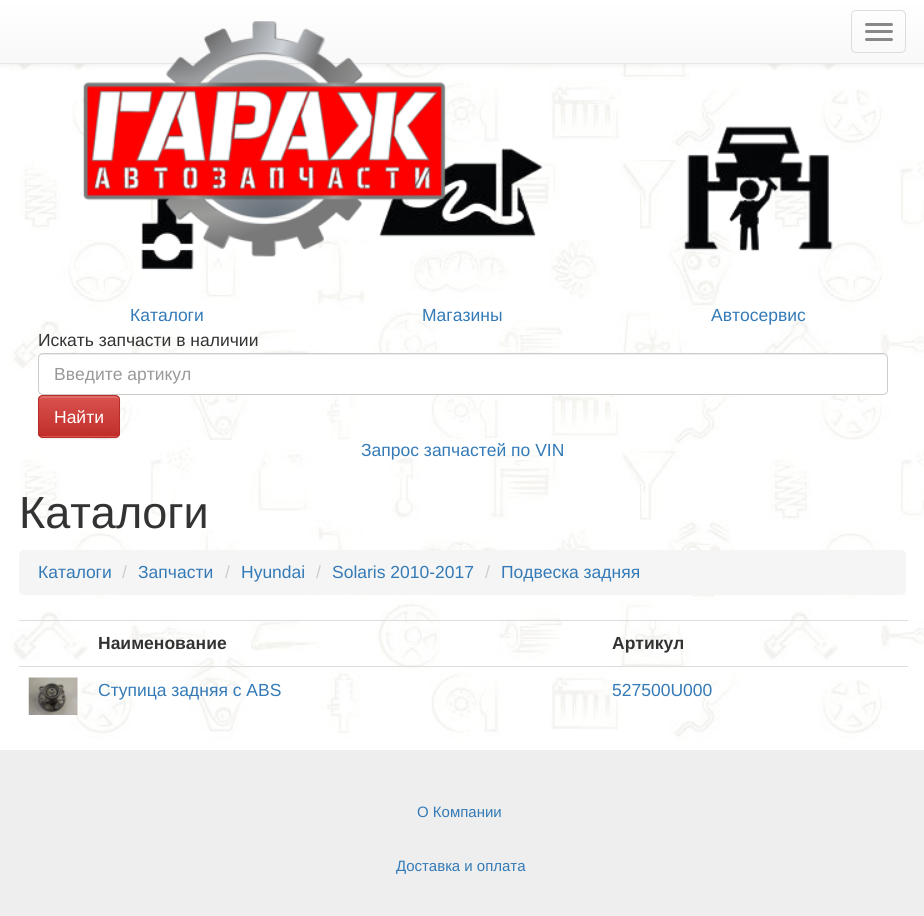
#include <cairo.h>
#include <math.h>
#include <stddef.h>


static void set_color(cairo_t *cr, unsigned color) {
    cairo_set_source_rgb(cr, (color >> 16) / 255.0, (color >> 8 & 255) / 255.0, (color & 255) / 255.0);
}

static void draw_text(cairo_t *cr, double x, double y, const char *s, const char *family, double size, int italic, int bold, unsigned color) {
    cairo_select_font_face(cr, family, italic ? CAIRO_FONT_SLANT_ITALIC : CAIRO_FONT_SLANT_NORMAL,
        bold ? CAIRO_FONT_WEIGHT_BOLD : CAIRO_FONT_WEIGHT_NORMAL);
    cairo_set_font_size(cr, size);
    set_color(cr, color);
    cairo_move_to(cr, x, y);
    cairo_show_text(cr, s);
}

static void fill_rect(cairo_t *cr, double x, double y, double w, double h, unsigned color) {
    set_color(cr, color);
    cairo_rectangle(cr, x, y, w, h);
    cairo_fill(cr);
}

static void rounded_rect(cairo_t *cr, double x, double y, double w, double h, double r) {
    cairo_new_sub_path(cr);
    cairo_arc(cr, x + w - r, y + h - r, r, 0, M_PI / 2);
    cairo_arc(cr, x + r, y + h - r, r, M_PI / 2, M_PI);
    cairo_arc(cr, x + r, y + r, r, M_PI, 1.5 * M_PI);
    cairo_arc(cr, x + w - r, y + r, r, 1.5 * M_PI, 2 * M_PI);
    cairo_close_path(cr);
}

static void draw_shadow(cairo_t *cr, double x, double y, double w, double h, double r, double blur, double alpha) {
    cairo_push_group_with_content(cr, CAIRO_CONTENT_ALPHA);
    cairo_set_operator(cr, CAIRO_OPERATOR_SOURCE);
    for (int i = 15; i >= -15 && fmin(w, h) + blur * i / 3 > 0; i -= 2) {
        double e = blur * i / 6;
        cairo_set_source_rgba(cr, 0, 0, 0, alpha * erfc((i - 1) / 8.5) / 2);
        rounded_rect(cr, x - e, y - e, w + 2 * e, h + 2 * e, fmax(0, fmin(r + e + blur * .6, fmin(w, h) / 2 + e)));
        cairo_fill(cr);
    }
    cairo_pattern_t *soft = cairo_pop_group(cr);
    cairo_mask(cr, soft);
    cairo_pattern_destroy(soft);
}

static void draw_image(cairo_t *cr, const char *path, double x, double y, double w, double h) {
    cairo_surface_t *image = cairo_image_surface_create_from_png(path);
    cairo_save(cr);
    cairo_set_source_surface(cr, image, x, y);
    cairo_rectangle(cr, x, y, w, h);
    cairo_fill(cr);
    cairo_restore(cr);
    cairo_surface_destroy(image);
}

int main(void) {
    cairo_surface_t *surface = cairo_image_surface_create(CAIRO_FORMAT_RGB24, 924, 916);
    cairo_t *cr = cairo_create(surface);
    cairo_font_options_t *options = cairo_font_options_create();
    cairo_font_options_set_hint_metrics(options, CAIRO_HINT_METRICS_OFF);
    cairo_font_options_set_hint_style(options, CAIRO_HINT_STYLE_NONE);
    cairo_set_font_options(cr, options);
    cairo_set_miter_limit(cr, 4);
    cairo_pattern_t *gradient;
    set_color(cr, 0xFFFFFF);
    cairo_paint(cr);
    draw_image(cr, "assets/img1.png", 10, 64, 914, 686);
    set_color(cr, 0x000000);
    draw_shadow(cr, 0, 1, 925, 64, 0, 3, 0.07);
    gradient = cairo_pattern_create_linear(463, 0, 463, 63);
    cairo_pattern_add_color_stop_rgba(gradient, 0, 1, 1, 1, 1);
    cairo_pattern_add_color_stop_rgba(gradient, 1, 0.973, 0.973, 0.973, 1);
    cairo_set_source(cr, gradient);
    cairo_pattern_destroy(gradient);
    cairo_rectangle(cr, 0, 0, 924, 63);
    cairo_fill(cr);
    fill_rect(cr, 0, 63, 924, 1, 0xE7E7E7);
    draw_image(cr, "assets/img3.png", 141, 198, 53, 73);
    draw_image(cr, "assets/img4.png", 360, 148, 183, 154);
    draw_image(cr, "assets/img2.png", 83, 21, 363, 236);
    rounded_rect(cr, 851.5, 10.5, 54, 42, 4.5);
    set_color(cr, 0xDDDDDD);
    cairo_set_line_width(cr, 1);
    cairo_stroke(cr);
    set_color(cr, 0x888888);
    rounded_rect(cr, 865, 23, 28, 3, 1.5);
    cairo_fill(cr);
    rounded_rect(cr, 865, 30, 28, 3, 1.5);
    cairo_fill(cr);
    rounded_rect(cr, 865, 38, 28, 3, 1.5);
    cairo_fill(cr);
    draw_text(cr, 130, 321, "Каталоги", "Liberation Sans", 17.5, 0, 0, 0x337AB7);
    draw_text(cr, 422, 321, "Магазины", "Liberation Sans", 17.5, 0, 0, 0x337AB7);
    draw_image(cr, "assets/img5.png", 683, 126, 150, 126);
    draw_text(cr, 711, 321, "Автосервис", "Liberation Sans", 17.5, 0, 0, 0x337AB7);
    draw_text(cr, 38, 346, "Искать запчасти в наличии", "Liberation Sans", 17.5, 0, 0, 0x333333);
    set_color(cr, 0xFFFFFF);
    rounded_rect(cr, 38, 353, 850, 42, 5);
    cairo_fill(cr);
    set_color(cr, 0xECECEC);
    cairo_new_path(cr);
    cairo_move_to(cr, 42, 355);
    cairo_line_to(cr, 882, 355);
    cairo_curve_to(cr, 885, 355, 886, 357, 886, 359);
    cairo_curve_to(cr, 886, 356, 885, 354, 882, 354);
    cairo_line_to(cr, 43, 354);
    cairo_curve_to(cr, 40, 354, 39, 356, 39, 359);
    cairo_curve_to(cr, 39, 357, 40, 355, 42, 355);
    cairo_close_path(cr);
    cairo_fill(cr);
    rounded_rect(cr, 38.5, 353.5, 849, 41, 4.5);
    set_color(cr, 0xCCCCCC);
    cairo_stroke(cr);
    draw_text(cr, 54, 380, "Введите артикул", "Liberation Sans", 17.5, 0, 0, 0x999999);
    set_color(cr, 0x000000);
    draw_shadow(cr, 38, 396, 82, 43, 5, 0.5, 0.07);
    set_color(cr, 0xD9534F);
    rounded_rect(cr, 38, 395, 82, 43, 5);
    cairo_fill(cr);
    cairo_save(cr);
    rounded_rect(cr, 38, 395, 82, 43, 5);
    cairo_clip(cr);
    gradient = cairo_pattern_create_linear(79, 396, 79, 436);
    cairo_pattern_add_color_stop_rgba(gradient, 0, 0.851, 0.325, 0.31, 1);
    cairo_pattern_add_color_stop_rgba(gradient, 1, 0.757, 0.18, 0.165, 1);
    cairo_set_source(cr, gradient);
    cairo_pattern_destroy(gradient);
    cairo_rectangle(cr, 38, 396, 82, 40);
    cairo_fill(cr);
    cairo_restore(cr);
    set_color(cr, 0xDE6C69);
    cairo_new_path(cr);
    cairo_move_to(cr, 42, 398);
    cairo_line_to(cr, 115, 398);
    cairo_curve_to(cr, 117, 398, 119, 399, 119, 401);
    cairo_curve_to(cr, 119, 393, 108, 396, 103, 396);
    cairo_line_to(cr, 55, 396);
    cairo_curve_to(cr, 50, 396, 39, 393, 39, 401);
    cairo_curve_to(cr, 39, 399, 40, 398, 42, 398);
    cairo_close_path(cr);
    cairo_fill(cr);
    rounded_rect(cr, 38.5, 395.5, 81, 42, 4.5);
    set_color(cr, 0xB92C28);
    cairo_stroke(cr);
    draw_text(cr, 54, 423, "Найти", "Liberation Sans", 17.5, 0, 0, 0xFFFFFF);
    draw_text(cr, 361, 456, "Запрос запчастей по VIN", "Liberation Sans", 17.5, 0, 0, 0x337AB7);
    draw_text(cr, 19, 528, "Каталоги", "Liberation Sans", 45, 0, 0, 0x333333);
    set_color(cr, 0xF5F5F5);
    rounded_rect(cr, 19, 550, 887, 45, 5);
    cairo_fill(cr);
    draw_text(cr, 38, 578, "Каталоги", "Liberation Sans", 17.5, 0, 0, 0x337AB7);
    draw_text(cr, 122, 578, "/", "Liberation Sans", 17.5, 0, 0, 0xCCCCCC);
    draw_text(cr, 138, 578, "Запчасти", "Liberation Sans", 17.5, 0, 0, 0x337AB7);
    draw_text(cr, 225, 578, "/", "Liberation Sans", 17.5, 0, 0, 0xCCCCCC);
    draw_text(cr, 241, 578, "Hyundai", "Liberation Sans", 17.5, 0, 0, 0x337AB7);
    draw_text(cr, 316, 578, "/", "Liberation Sans", 17.5, 0, 0, 0xCCCCCC);
    draw_text(cr, 332, 578, "Solaris 2010-2017", "Liberation Sans", 17.5, 0, 0, 0x337AB7);
    draw_text(cr, 485, 578, "/", "Liberation Sans", 17.5, 0, 0, 0xCCCCCC);
    draw_text(cr, 501, 578, "Подвеска задняя", "Liberation Sans", 17.5, 0, 0, 0x337AB7);
    draw_text(cr, 98, 649, "Наименование", "Liberation Sans", 17.5, 0, 1, 0x333333);
    fill_rect(cr, 19, 620, 889, 1, 0xDDDDDD);
    draw_text(cr, 612, 649, "Артикул", "Liberation Sans", 17.5, 0, 1, 0x333333);
    draw_image(cr, "assets/img6.png", 28, 677, 50, 38);
    draw_text(cr, 98, 696, "Ступица задняя c ABS", "Liberation Sans", 17.5, 0, 0, 0x337AB7);
    fill_rect(cr, 19, 666, 889, 1, 0xDDDDDD);
    draw_text(cr, 612, 696, "527500U000", "Liberation Sans", 17.5, 0, 0, 0x337AB7);
    fill_rect(cr, 0, 750, 924, 166, 0xEEEEEE);
    draw_text(cr, 417, 817, "О Компании", "Liberation Sans", 15, 0, 0, 0x337AB7);
    draw_text(cr, 396, 871, "Доставка и оплата", "Liberation Sans", 15, 0, 0, 0x337AB7);
    cairo_surface_write_to_png(surface, "output.png");
    cairo_font_options_destroy(options);
    cairo_destroy(cr);
    cairo_surface_destroy(surface);
    return 0;
}
